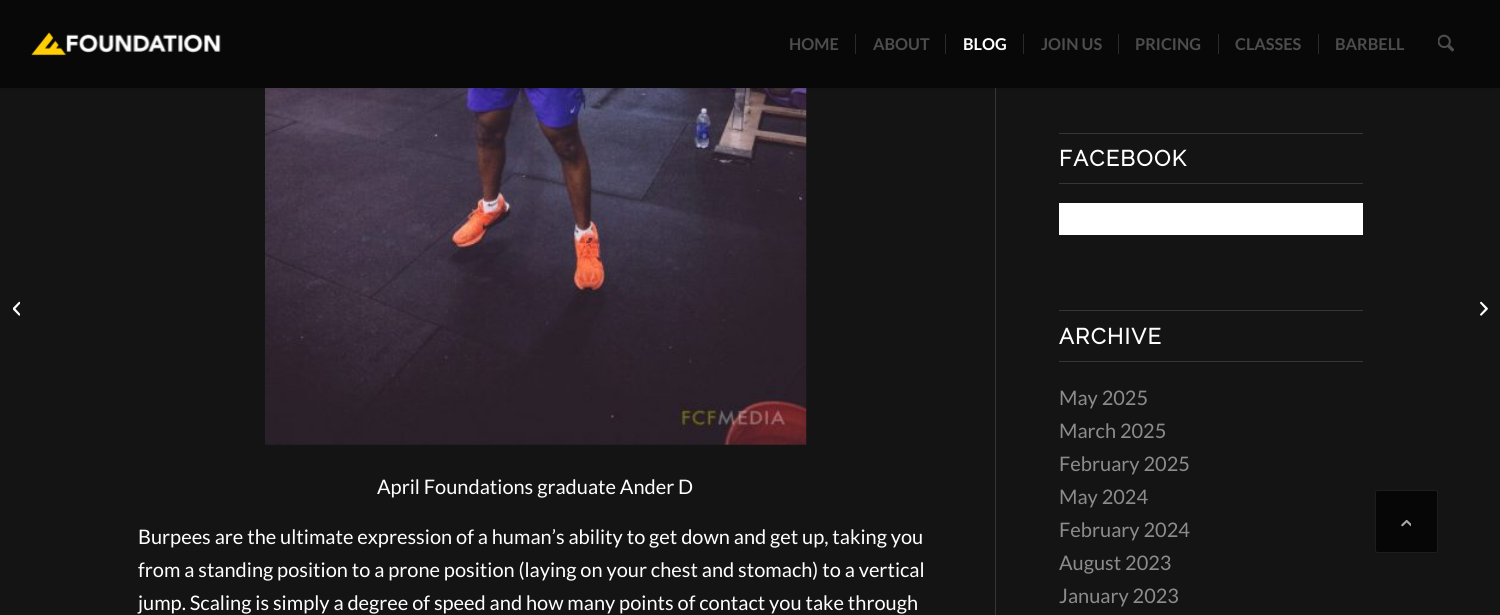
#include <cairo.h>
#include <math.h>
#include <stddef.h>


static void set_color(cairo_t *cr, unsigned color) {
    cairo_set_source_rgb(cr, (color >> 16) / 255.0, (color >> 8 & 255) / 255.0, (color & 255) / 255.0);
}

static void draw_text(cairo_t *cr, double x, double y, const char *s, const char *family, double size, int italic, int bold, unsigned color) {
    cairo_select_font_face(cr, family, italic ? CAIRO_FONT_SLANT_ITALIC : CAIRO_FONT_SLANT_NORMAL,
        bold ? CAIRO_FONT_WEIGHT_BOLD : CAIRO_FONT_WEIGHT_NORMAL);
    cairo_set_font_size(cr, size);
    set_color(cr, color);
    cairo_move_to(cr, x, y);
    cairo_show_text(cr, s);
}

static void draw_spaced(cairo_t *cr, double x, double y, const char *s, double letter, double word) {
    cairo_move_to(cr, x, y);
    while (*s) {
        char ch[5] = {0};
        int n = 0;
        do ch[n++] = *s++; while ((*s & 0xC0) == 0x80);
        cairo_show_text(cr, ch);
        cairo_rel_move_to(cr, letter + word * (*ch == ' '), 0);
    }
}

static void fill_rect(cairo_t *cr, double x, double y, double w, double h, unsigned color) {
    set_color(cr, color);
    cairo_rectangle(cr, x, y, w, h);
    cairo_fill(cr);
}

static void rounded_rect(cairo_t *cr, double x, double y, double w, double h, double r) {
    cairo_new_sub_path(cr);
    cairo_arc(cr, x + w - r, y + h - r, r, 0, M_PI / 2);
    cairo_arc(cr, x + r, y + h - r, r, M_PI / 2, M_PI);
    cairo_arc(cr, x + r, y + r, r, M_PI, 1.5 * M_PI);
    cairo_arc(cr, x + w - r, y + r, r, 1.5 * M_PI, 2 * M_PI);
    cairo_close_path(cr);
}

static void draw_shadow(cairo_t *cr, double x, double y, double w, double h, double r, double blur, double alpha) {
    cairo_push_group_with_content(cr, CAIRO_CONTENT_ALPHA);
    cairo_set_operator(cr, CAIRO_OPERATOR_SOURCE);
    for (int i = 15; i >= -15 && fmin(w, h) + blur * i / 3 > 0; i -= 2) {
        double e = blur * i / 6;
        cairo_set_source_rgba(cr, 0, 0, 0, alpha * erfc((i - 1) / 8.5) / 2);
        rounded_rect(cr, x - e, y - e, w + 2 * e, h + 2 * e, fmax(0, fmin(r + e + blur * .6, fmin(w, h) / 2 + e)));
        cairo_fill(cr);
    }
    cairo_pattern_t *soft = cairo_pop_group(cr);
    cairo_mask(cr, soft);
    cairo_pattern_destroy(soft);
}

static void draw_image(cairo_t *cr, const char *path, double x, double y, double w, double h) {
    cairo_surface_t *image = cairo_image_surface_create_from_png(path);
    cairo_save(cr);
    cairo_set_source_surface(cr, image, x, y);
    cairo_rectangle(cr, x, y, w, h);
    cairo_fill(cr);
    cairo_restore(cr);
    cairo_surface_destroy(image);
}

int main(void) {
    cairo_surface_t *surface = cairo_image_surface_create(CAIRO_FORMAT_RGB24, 1500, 615);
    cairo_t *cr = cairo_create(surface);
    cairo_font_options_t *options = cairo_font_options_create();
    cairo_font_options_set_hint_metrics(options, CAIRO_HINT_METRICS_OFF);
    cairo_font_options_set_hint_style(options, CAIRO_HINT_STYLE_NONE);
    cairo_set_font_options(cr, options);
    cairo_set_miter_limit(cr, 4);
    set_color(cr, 0x141414);
    cairo_paint(cr);
    fill_rect(cr, 995, 88, 1, 527, 0x363636);
    draw_image(cr, "assets/img4.png", 265, 88, 542, 357);
    set_color(cr, 0x000000);
    draw_shadow(cr, -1, -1, 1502, 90, 0, 1, 0.1);
    fill_rect(cr, 0, 0, 1500, 88, 0x080808);
    draw_image(cr, "assets/img1.png", 31, 32, 190, 24);
    draw_text(cr, 789, 50, "HOME", "Lato", 16.25, 0, 1, 0x4D4D4D);
    draw_text(cr, 873, 50, "ABOUT", "Lato", 16.25, 0, 1, 0x4D4D4D);
    fill_rect(cr, 855, 34, 1, 20, 0x2B2B2B);
    draw_text(cr, 963, 50, "BLOG", "Lato", 16.25, 0, 1, 0xFFFFFF);
    fill_rect(cr, 945, 34, 1, 20, 0x2B2B2B);
    draw_text(cr, 1041, 50, "JOIN US", "Lato", 16.25, 0, 1, 0x4D4D4D);
    fill_rect(cr, 1023, 34, 1, 20, 0x2B2B2B);
    draw_text(cr, 1135, 50, "PRICING", "Lato", 16.25, 0, 1, 0x4D4D4D);
    fill_rect(cr, 1118, 34, 1, 20, 0x2B2B2B);
    draw_text(cr, 1235, 50, "CLASSES", "Lato", 16.25, 0, 1, 0x4D4D4D);
    fill_rect(cr, 1218, 34, 1, 20, 0x2B2B2B);
    draw_text(cr, 1335, 50, "BARBELL", "Lato", 16.25, 0, 1, 0x4D4D4D);
    fill_rect(cr, 1318, 34, 1, 20, 0x2B2B2B);
    draw_image(cr, "assets/img2.png", 1438, 34, 16, 18);
    draw_image(cr, "assets/img3.png", 13, 301, 7, 15);
    draw_text(cr, 377, 494, "April Foundations graduate Ander D", "Lato", 20, 0, 0, 0xFFFFFF);
    draw_text(cr, 138, 544, "Burpees are the ultimate expression of a human’s ability to get down and get up, taking you", "Lato", 20, 0, 0, 0xFFFFFF);
    draw_text(cr, 138, 577, "from a standing position to a prone position (laying on your chest and stomach) to a vertical", "Lato", 20, 0, 0, 0xFFFFFF);
    draw_text(cr, 138, 610, "jump. Scaling is simply a degree of speed and how many points of contact you take through", "Lato", 20, 0, 0, 0xFFFFFF);
    fill_rect(cr, 1059, 133, 304, 1, 0x363636);
    fill_rect(cr, 1059, 183, 304, 1, 0x363636);
    cairo_select_font_face(cr, "Raleway", CAIRO_FONT_SLANT_NORMAL, CAIRO_FONT_WEIGHT_BOLD);
    cairo_set_font_size(cr, 22);
    set_color(cr, 0xFFFFFF);
    draw_spaced(cr, 1059, 166, "FACEBOOK", 1.25, 0);
    fill_rect(cr, 1059, 203, 304, 32, 0xFFFFFF);
    fill_rect(cr, 1059, 310, 304, 1, 0x363636);
    fill_rect(cr, 1059, 361, 304, 1, 0x363636);
    set_color(cr, 0xFFFFFF);
    draw_spaced(cr, 1059, 344, "ARCHIVE", 1.25, 0);
    draw_text(cr, 1059, 405, "May 2025", "Lato", 20, 0, 0, 0x8C8C8C);
    draw_text(cr, 1059, 438, "March 2025", "Lato", 20, 0, 0, 0x8C8C8C);
    draw_text(cr, 1059, 471, "February 2025", "Lato", 20, 0, 0, 0x8C8C8C);
    draw_text(cr, 1059, 504, "May 2024", "Lato", 20, 0, 0, 0x8C8C8C);
    draw_text(cr, 1059, 537, "February 2024", "Lato", 20, 0, 0, 0x8C8C8C);
    draw_text(cr, 1059, 570, "August 2023", "Lato", 20, 0, 0, 0x8C8C8C);
    draw_text(cr, 1059, 603, "January 2023", "Lato", 20, 0, 0, 0x8C8C8C);
    draw_image(cr, "assets/img5.png", 1480, 301, 8, 15);
    set_color(cr, 0x060606);
    rounded_rect(cr, 1375.5, 490.5, 62, 62, 2);
    cairo_fill_preserve(cr);
    set_color(cr, 0x1E1E1E);
    cairo_set_line_width(cr, 1);
    cairo_stroke(cr);
    draw_image(cr, "assets/img6.png", 1401, 520, 10, 7);
    cairo_surface_write_to_png(surface, "output.png");
    cairo_font_options_destroy(options);
    cairo_destroy(cr);
    cairo_surface_destroy(surface);
    return 0;
}
